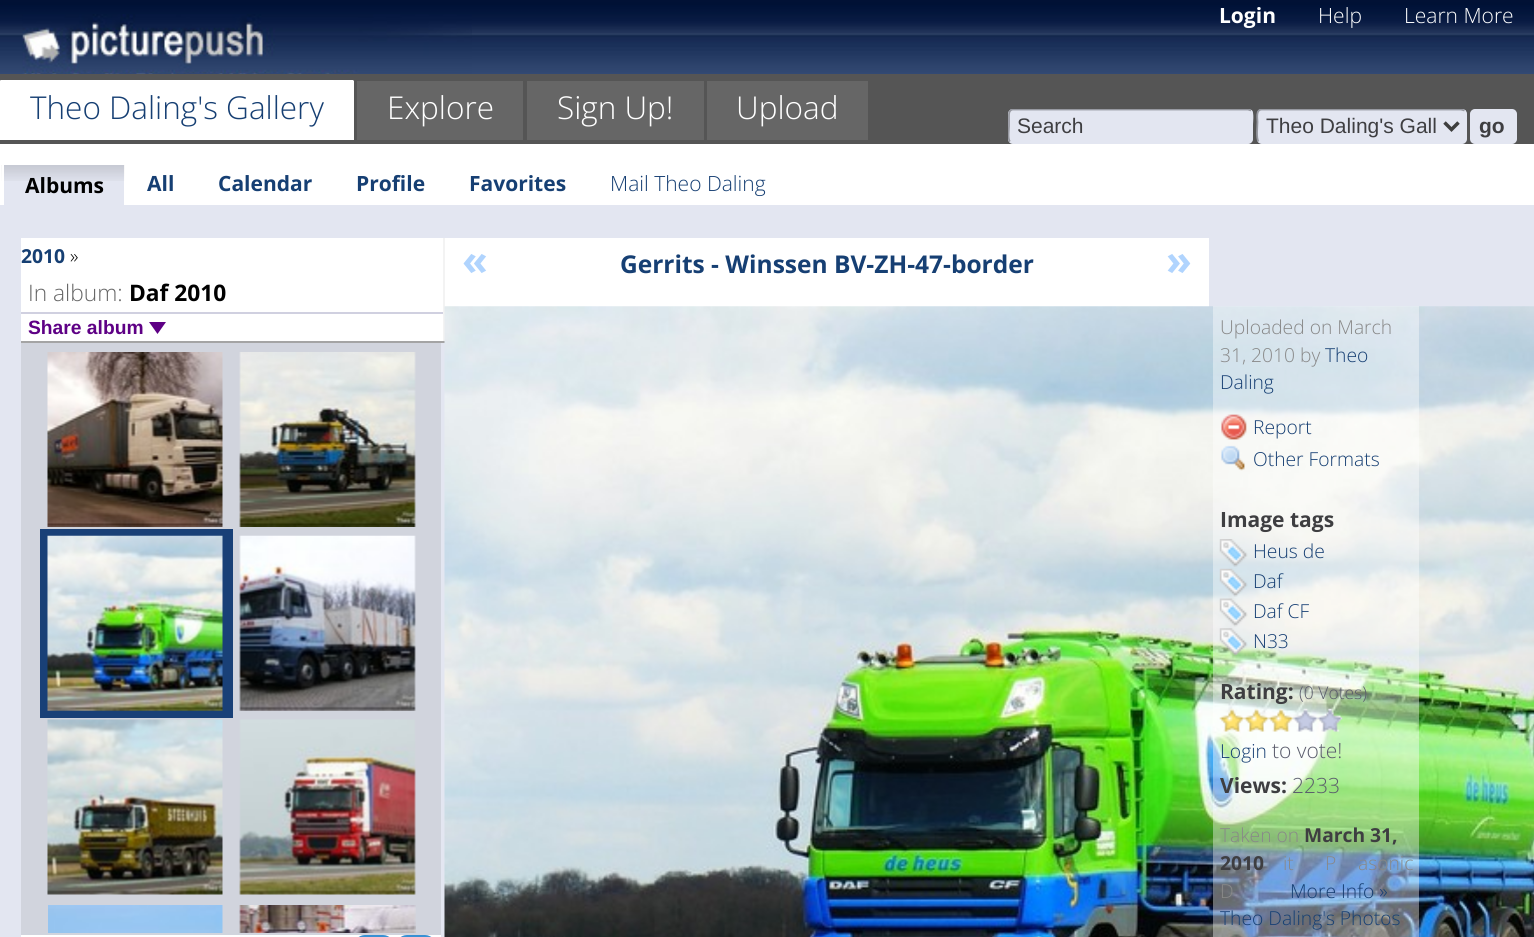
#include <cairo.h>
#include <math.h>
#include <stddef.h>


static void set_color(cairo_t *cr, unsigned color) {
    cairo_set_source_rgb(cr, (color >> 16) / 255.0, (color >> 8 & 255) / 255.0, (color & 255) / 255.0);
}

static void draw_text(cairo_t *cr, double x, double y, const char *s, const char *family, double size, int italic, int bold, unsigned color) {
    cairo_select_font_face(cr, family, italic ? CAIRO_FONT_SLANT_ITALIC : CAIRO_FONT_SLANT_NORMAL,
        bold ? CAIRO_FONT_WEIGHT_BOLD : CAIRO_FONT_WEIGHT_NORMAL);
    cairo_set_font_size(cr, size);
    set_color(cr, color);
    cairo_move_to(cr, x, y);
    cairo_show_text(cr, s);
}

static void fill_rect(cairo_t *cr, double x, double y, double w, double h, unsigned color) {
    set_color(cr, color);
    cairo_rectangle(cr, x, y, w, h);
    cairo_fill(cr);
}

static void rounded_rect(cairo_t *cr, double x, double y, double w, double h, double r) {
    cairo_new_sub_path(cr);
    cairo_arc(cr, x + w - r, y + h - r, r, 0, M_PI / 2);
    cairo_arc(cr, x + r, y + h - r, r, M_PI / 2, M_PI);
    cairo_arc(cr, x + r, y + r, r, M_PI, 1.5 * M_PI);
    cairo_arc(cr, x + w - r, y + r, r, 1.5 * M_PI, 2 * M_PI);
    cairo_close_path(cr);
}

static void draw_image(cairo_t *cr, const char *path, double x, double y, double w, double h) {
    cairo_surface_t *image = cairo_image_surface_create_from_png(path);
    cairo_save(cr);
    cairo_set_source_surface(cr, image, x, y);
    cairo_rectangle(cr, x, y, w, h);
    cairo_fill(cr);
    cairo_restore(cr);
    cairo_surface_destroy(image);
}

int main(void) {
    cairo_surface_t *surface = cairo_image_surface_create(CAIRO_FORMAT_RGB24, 1534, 937);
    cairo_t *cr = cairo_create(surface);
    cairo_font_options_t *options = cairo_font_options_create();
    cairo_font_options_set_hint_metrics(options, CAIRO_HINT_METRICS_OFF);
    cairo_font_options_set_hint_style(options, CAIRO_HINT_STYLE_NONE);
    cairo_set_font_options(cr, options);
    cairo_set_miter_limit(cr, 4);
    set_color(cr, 0xE3E6F1);
    cairo_paint(cr);
    draw_image(cr, "assets/img1.png", 0, 0, 1534, 74);
    draw_image(cr, "assets/img2.png", 22, 14, 450, 60);
    draw_text(cr, 1219, 23, "Login", "Open Sans", 21, 0, 1, 0xFFFFFF);
    draw_text(cr, 1318, 23, "Help", "Open Sans Light", 21, 0, 0, 0xFFFFFF);
    draw_text(cr, 1404, 23, "Learn More", "Open Sans Light", 21, 0, 0, 0xFFFFFF);
    fill_rect(cr, 0, 74, 1534, 70, 0x555555);
    fill_rect(cr, 0, 81, 354, 59, 0xFFFFFF);
    draw_text(cr, 30, 119, "Theo Daling's Gallery", "Open Sans Light", 31.5, 0, 0, 0x163F73);
    set_color(cr, 0xFFFFFF);
    cairo_new_path(cr);
    cairo_move_to(cr, 0, 80);
    cairo_line_to(cr, 354, 80);
    cairo_line_to(cr, 352, 82);
    cairo_line_to(cr, 2, 82);
    cairo_close_path(cr);
    cairo_fill(cr);
    cairo_new_path(cr);
    cairo_move_to(cr, 0, 140);
    cairo_line_to(cr, 0, 80);
    cairo_line_to(cr, 2, 82);
    cairo_line_to(cr, 2, 138);
    cairo_close_path(cr);
    cairo_fill(cr);
    fill_rect(cr, 357, 81, 166, 59, 0x666666);
    draw_text(cr, 387, 119, "Explore", "Open Sans Light", 31.5, 0, 0, 0xFFFFFF);
    fill_rect(cr, 527, 81, 177, 59, 0x666666);
    draw_text(cr, 557, 119, "Sign Up!", "Open Sans Light", 31.5, 0, 0, 0xFFFFFF);
    fill_rect(cr, 707, 81, 161, 59, 0x666666);
    draw_text(cr, 736, 119, "Upload", "Open Sans Light", 31.5, 0, 0, 0xFFFFFF);
    set_color(cr, 0xE3E6F1);
    rounded_rect(cr, 1008, 109, 245, 35, 5);
    cairo_fill(cr);
    cairo_new_path(cr);
    cairo_move_to(cr, 1251, 110.5);
    cairo_curve_to(cr, 1253.5, 113, 1252, 123, 1252, 126);
    cairo_line_to(cr, 1252, 134);
    cairo_curve_to(cr, 1252, 137.5, 1252.5, 141.5, 1248.5, 142.5);
    cairo_line_to(cr, 1013, 142.5);
    cairo_line_to(cr, 1010, 141.5);
    cairo_set_line_width(cr, 1.8);
    cairo_stroke(cr);
    cairo_save(cr);
    cairo_rectangle(cr, 1008, 109, 509, 42);
    cairo_clip(cr);
    cairo_new_path(cr);
    cairo_move_to(cr, 1010, 141.5);
    cairo_curve_to(cr, 1007.5, 139, 1009, 129, 1009, 126);
    cairo_line_to(cr, 1009, 118);
    cairo_curve_to(cr, 1009, 114.5, 1008.5, 110.5, 1012.5, 109.5);
    cairo_line_to(cr, 1248, 109.5);
    cairo_line_to(cr, 1251, 110.5);
    set_color(cr, 0x9799A1);
    cairo_stroke(cr);
    cairo_restore(cr);
    draw_text(cr, 1017, 133, "Search", "Liberation Sans", 21, 0, 0, 0x3E3E41);
    set_color(cr, 0xE3E6F1);
    rounded_rect(cr, 1257, 109, 210, 35, 5);
    cairo_fill(cr);
    cairo_new_path(cr);
    cairo_move_to(cr, 1464.5, 110.5);
    cairo_curve_to(cr, 1467, 113.5, 1465.5, 126.5, 1465.5, 130);
    cairo_curve_to(cr, 1465.5, 133.5, 1467.5, 142.5, 1461, 142.5);
    cairo_line_to(cr, 1262, 142.5);
    cairo_line_to(cr, 1258.5, 141.5);
    cairo_stroke(cr);
    cairo_save(cr);
    cairo_rectangle(cr, 1008, 109, 509, 42);
    cairo_clip(cr);
    cairo_new_path(cr);
    cairo_move_to(cr, 1258.5, 141.5);
    cairo_curve_to(cr, 1256, 138.5, 1257.5, 125.5, 1257.5, 122);
    cairo_curve_to(cr, 1257.5, 118.5, 1255.5, 109.5, 1262, 109.5);
    cairo_line_to(cr, 1461, 109.5);
    cairo_line_to(cr, 1464.5, 110.5);
    set_color(cr, 0x9799A1);
    cairo_stroke(cr);
    cairo_restore(cr);
    cairo_new_path(cr);
    cairo_move_to(cr, 1444.5, 122.5);
    cairo_line_to(cr, 1451.5, 129.5);
    cairo_line_to(cr, 1458.5, 122.5);
    set_color(cr, 0x3E3E3E);
    cairo_set_line_width(cr, 3.5);
    cairo_stroke(cr);
    draw_text(cr, 1266, 133, "Theo Daling's Gall", "Liberation Sans", 21, 0, 0, 0x3E3E41);
    set_color(cr, 0xE3E6F1);
    rounded_rect(cr, 1471, 110, 45, 33, 4);
    cairo_fill_preserve(cr);
    cairo_set_line_width(cr, 2);
    cairo_stroke(cr);
    draw_text(cr, 1479, 133, "go", "Liberation Sans", 21, 0, 1, 0x3E3E41);
    fill_rect(cr, 0, 144, 1534, 61, 0xFFFFFF);
    fill_rect(cr, 4, 165, 120, 40, 0xE3E6F1);
    draw_image(cr, "assets/img3.png", 1, 165, 124, 16);
    draw_text(cr, 25, 193, "Albums", "Open Sans", 21, 0, 1, 0x000000);
    fill_rect(cr, 2, 163, 2, 18, 0xFFFFFF);
    draw_text(cr, 147, 191, "All", "Open Sans", 21, 0, 1, 0x163F73);
    draw_text(cr, 218, 191, "Calendar", "Open Sans", 21, 0, 1, 0x163F73);
    draw_text(cr, 356, 191, "Profile", "Open Sans", 21, 0, 1, 0x163F73);
    draw_text(cr, 469, 191, "Favorites", "Open Sans", 21, 0, 1, 0x163F73);
    draw_text(cr, 610, 191, "Mail Theo Daling", "Open Sans Light", 21, 0, 0, 0x163F73);
    fill_rect(cr, 21, 238, 422, 103, 0xFFFFFF);
    fill_rect(cr, 443, 238, 2, 105, 0xF3F3F3);
    fill_rect(cr, 21, 341, 424, 2, 0xA4A4A4);
    draw_text(cr, 21, 263, "2010", "Open Sans", 19.25, 0, 1, 0x163F73);
    draw_text(cr, 70, 263, "»", "Open Sans Light", 19.25, 0, 0, 0x000000);
    draw_text(cr, 28, 301, "In album:", "Open Sans Light", 22.75, 0, 0, 0x666666);
    draw_text(cr, 129, 301, "Daf 2010", "Open Sans", 22.75, 0, 1, 0x000000);
    fill_rect(cr, 21, 312, 422, 2, 0xD0D0E0);
    draw_text(cr, 28, 334, "Share album", "Liberation Sans", 19.25, 0, 1, 0x5E0085);
    cairo_new_path(cr);
    cairo_move_to(cr, 149, 322);
    cairo_line_to(cr, 166, 322);
    cairo_line_to(cr, 157.5, 334);
    cairo_close_path(cr);
    cairo_fill(cr);
    fill_rect(cr, 21, 343, 420, 592, 0xD1D4DD);
    draw_image(cr, "assets/img4.png", 47, 352, 176, 175);
    draw_image(cr, "assets/img5.png", 239, 352, 177, 175);
    fill_rect(cr, 40, 529, 193, 189, 0x194077);
    draw_image(cr, "assets/img6.png", 47, 535, 176, 176);
    draw_image(cr, "assets/img7.png", 239, 535, 177, 176);
    draw_image(cr, "assets/img8.png", 47, 719, 176, 176);
    draw_image(cr, "assets/img9.png", 239, 719, 177, 176);
    draw_image(cr, "assets/img10.png", 48, 905, 175, 28);
    draw_image(cr, "assets/img11.png", 239, 905, 177, 28);
    fill_rect(cr, 21, 935, 420, 2, 0xFFFFFF);
    rounded_rect(cr, 355, 936, 38, 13, 10);
    set_color(cr, 0x3890D3);
    cairo_stroke(cr);
    rounded_rect(cr, 397, 936, 38, 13, 10);
    cairo_stroke(cr);
    fill_rect(cr, 445, 238, 764, 69, 0xFFFFFF);
    draw_text(cr, 462, 275, "«", "Open Sans", 42, 0, 1, 0xB0D4FE);
    draw_text(cr, 620, 273, "Gerrits - Winssen BV-ZH-47-border", "Open Sans", 24.5, 0, 1, 0x163F73);
    draw_text(cr, 1166, 275, "»", "Open Sans", 42, 0, 1, 0xB0D4FE);
    draw_image(cr, "assets/img12.png", 444, 306, 1090, 631);
    cairo_set_source_rgba(cr, 1, 1, 1, 0.4);
    cairo_rectangle(cr, 1213, 306, 206, 631);
    cairo_fill(cr);
    draw_text(cr, 1220, 334, "Uploaded on March", "Open Sans Light", 19.25, 0, 0, 0x888888);
    draw_text(cr, 1220, 362, "31, 2010 by", "Open Sans Light", 19.25, 0, 0, 0x888888);
    draw_text(cr, 1325, 362, "Theo", "Open Sans Light", 19.25, 0, 0, 0x163F73);
    draw_text(cr, 1220, 389, "Daling", "Open Sans Light", 19.25, 0, 0, 0x163F73);
    draw_image(cr, "assets/img13.png", 1221, 414, 26, 26);
    draw_text(cr, 1253, 434, "Report", "Open Sans Light", 19.25, 0, 0, 0x163F73);
    draw_image(cr, "assets/img14.png", 1221, 445, 24, 26);
    draw_text(cr, 1253, 466, "Other Formats", "Open Sans Light", 19.25, 0, 0, 0x163F73);
    draw_text(cr, 1220, 527, "Image tags", "Open Sans", 21, 0, 1, 0x3E3E41);
    draw_image(cr, "assets/img15.png", 1219, 539, 29, 28);
    draw_text(cr, 1253, 558, "Heus de", "Open Sans Light", 19.25, 0, 0, 0x163F73);
    draw_image(cr, "assets/img16.png", 1219, 568, 29, 29);
    draw_text(cr, 1253, 588, "Daf", "Open Sans Light", 19.25, 0, 0, 0x163F73);
    draw_image(cr, "assets/img17.png", 1219, 598, 29, 29);
    draw_text(cr, 1253, 618, "Daf CF", "Open Sans Light", 19.25, 0, 0, 0x163F73);
    draw_image(cr, "assets/img18.png", 1219, 628, 29, 28);
    draw_text(cr, 1253, 648, "N33", "Open Sans Light", 19.25, 0, 0, 0x163F73);
    draw_text(cr, 1220, 699, "Rating:", "Open Sans", 21, 0, 1, 0x3E3E41);
    draw_text(cr, 1299, 699, "(0 Votes)", "Open Sans Light", 17.5, 0, 0, 0x5A5C6C);
    draw_image(cr, "assets/img19.png", 1219, 708, 26, 24);
    draw_image(cr, "assets/img20.png", 1244, 708, 25, 24);
    draw_image(cr, "assets/img21.png", 1268, 708, 26, 24);
    draw_image(cr, "assets/img22.png", 1293, 708, 25, 24);
    draw_image(cr, "assets/img23.png", 1317, 708, 26, 24);
    draw_text(cr, 1220, 758, "Login", "Open Sans Light", 19.25, 0, 0, 0x163F73);
    draw_text(cr, 1272, 758, "to vote!", "Open Sans Light", 21, 0, 0, 0x5A5C6C);
    draw_text(cr, 1220, 793, "Views:", "Open Sans", 21, 0, 1, 0x3E3E41);
    draw_text(cr, 1292, 793, "2233", "Open Sans Light", 21, 0, 0, 0x5A5C6C);
    draw_text(cr, 1220, 842, "Taken on", "Open Sans Light", 19.25, 0, 0, 0x888888);
    draw_text(cr, 1304, 842, "March 31,", "Open Sans", 19.25, 0, 1, 0x3E3E41);
    draw_text(cr, 1220, 870, "2010", "Open Sans", 19.25, 0, 1, 0x3E3E41);
    draw_text(cr, 1283, 870, "it", "Open Sans Light", 19.25, 0, 0, 0x888888);
    draw_text(cr, 1325, 870, "P", "Open Sans Light", 19.25, 0, 0, 0x888888);
    draw_text(cr, 1358, 870, "asonic", "Open Sans Light", 19.25, 0, 0, 0x888888);
    draw_text(cr, 1220, 898, "D", "Open Sans Light", 19.25, 0, 0, 0x888888);
    draw_text(cr, 1290, 898, "More Info »", "Open Sans Light", 19.25, 0, 0, 0x163F73);
    draw_text(cr, 1220, 925, "Theo Daling's Photos", "Open Sans Light", 19.25, 0, 0, 0x163F73);
    cairo_surface_write_to_png(surface, "output.png");
    cairo_font_options_destroy(options);
    cairo_destroy(cr);
    cairo_surface_destroy(surface);
    return 0;
}
